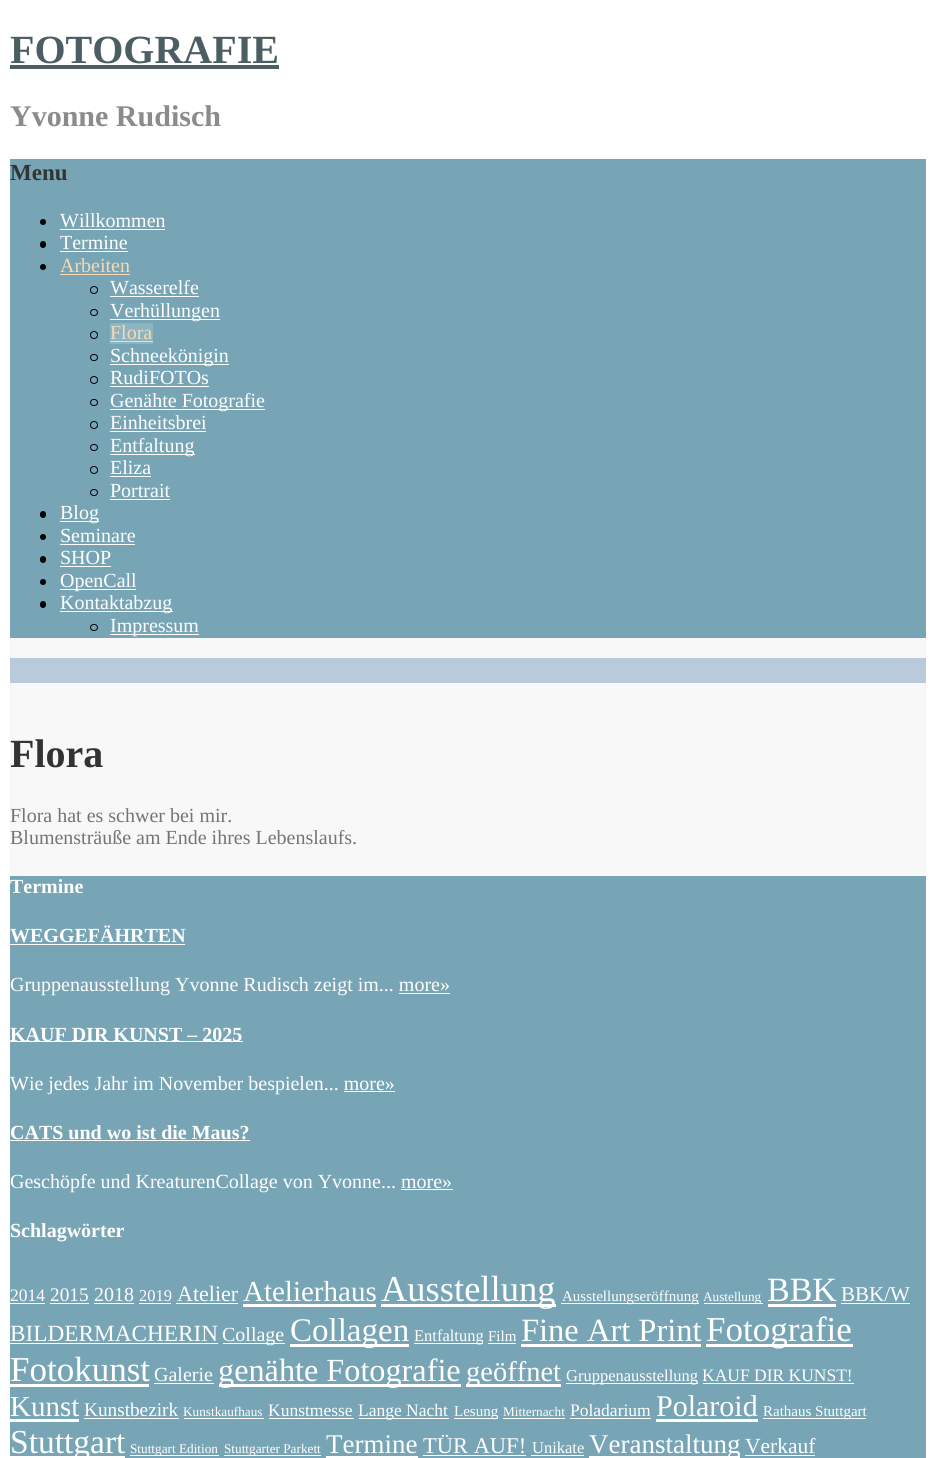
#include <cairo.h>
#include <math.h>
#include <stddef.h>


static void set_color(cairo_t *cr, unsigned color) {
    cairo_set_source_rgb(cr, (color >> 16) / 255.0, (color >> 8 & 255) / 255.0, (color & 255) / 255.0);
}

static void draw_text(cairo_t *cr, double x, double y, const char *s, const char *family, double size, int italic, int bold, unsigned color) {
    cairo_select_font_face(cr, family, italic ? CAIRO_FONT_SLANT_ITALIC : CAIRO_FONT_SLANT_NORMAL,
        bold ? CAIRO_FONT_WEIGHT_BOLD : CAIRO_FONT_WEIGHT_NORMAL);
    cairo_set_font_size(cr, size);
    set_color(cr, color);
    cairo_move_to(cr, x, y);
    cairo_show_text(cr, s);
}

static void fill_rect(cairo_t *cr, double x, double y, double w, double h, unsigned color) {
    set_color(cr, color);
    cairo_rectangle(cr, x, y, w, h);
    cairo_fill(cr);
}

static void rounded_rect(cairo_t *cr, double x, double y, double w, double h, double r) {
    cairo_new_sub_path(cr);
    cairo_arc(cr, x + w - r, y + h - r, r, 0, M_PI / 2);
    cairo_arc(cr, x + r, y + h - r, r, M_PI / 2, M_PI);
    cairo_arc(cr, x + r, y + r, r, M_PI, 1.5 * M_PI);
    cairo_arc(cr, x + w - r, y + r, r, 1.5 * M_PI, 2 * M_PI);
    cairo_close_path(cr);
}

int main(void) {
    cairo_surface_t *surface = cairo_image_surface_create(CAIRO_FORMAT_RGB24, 936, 1458);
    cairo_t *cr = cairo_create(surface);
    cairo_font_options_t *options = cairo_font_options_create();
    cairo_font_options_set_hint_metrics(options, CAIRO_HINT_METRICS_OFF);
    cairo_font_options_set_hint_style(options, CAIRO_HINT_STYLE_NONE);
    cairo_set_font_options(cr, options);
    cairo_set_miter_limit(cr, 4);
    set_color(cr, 0xFFFFFF);
    cairo_paint(cr);
    draw_text(cr, 10, 63, "FOTOGRAFIE", "Liberation Serif", 40, 0, 1, 0x4C5D64);
    fill_rect(cr, 10, 65, 269, 4, 0x4C5D64);
    draw_text(cr, 10, 126, "Yvonne Rudisch", "Liberation Serif", 30, 0, 1, 0x8B8B8B);
    fill_rect(cr, 10, 638, 916, 238, 0xF8F8F8);
    fill_rect(cr, 10, 159, 916, 479, 0x78A5B6);
    draw_text(cr, 10, 180, "Menu", "Liberation Serif", 23, 0, 1, 0x333333);
    set_color(cr, 0x000000);
    cairo_new_path(cr);
    cairo_arc(cr, 43, 222, 3, 0, 2 * M_PI);
    cairo_fill(cr);
    draw_text(cr, 60, 227, "Willkommen", "Liberation Serif", 20, 0, 0, 0xFFFFFF);
    fill_rect(cr, 60, 229, 105, 1, 0xFFFFFF);
    set_color(cr, 0x000000);
    rounded_rect(cr, 40, 241, 6, 7, 3);
    cairo_fill(cr);
    draw_text(cr, 60, 249, "Termine", "Liberation Serif", 20, 0, 0, 0xFFFFFF);
    fill_rect(cr, 60, 251, 68, 1, 0xFFFFFF);
    set_color(cr, 0x000000);
    cairo_new_path(cr);
    cairo_arc(cr, 43, 267, 3, 0, 2 * M_PI);
    cairo_fill(cr);
    draw_text(cr, 60, 272, "Arbeiten", "Liberation Serif", 20, 0, 0, 0xF8D9B0);
    fill_rect(cr, 60, 274, 70, 1, 0xF8D9B0);
    cairo_new_path(cr);
    cairo_arc(cr, 94, 290, 3.5, 0, 2 * M_PI);
    set_color(cr, 0x000000);
    cairo_set_line_width(cr, 1);
    cairo_stroke(cr);
    draw_text(cr, 110, 294, "Wasserelfe", "Liberation Serif", 20, 0, 0, 0xFFFFFF);
    fill_rect(cr, 110, 296, 89, 1, 0xFFFFFF);
    rounded_rect(cr, 90.5, 309.5, 7, 6, 3);
    set_color(cr, 0x000000);
    cairo_stroke(cr);
    fill_rect(cr, 110, 319, 110, 1, 0xFFFFFF);
    draw_text(cr, 110, 317, "Verhüllungen", "Liberation Serif", 20, 0, 0, 0xFFFFFF);
    cairo_new_path(cr);
    cairo_arc(cr, 94, 335, 3.5, 0, 2 * M_PI);
    set_color(cr, 0x000000);
    cairo_stroke(cr);
    fill_rect(cr, 110, 323, 43, 21, 0x8CB5C4);
    draw_text(cr, 110, 339, "Flora", "Liberation Serif", 20, 0, 0, 0xF8D9B0);
    fill_rect(cr, 110, 341, 43, 1, 0xF8D9B0);
    rounded_rect(cr, 90.5, 354.5, 7, 6, 3);
    set_color(cr, 0x000000);
    cairo_stroke(cr);
    fill_rect(cr, 110, 364, 119, 1, 0xFFFFFF);
    draw_text(cr, 110, 362, "Schneekönigin", "Liberation Serif", 20, 0, 0, 0xFFFFFF);
    cairo_new_path(cr);
    cairo_arc(cr, 94, 380, 3.5, 0, 2 * M_PI);
    set_color(cr, 0x000000);
    cairo_stroke(cr);
    draw_text(cr, 110, 384, "RudiFOTOs", "Liberation Serif", 20, 0, 0, 0xFFFFFF);
    fill_rect(cr, 110, 386, 99, 1, 0xFFFFFF);
    rounded_rect(cr, 90.5, 399.5, 7, 6, 3);
    set_color(cr, 0x000000);
    cairo_stroke(cr);
    fill_rect(cr, 110, 409, 155, 1, 0xFFFFFF);
    draw_text(cr, 110, 407, "Genähte Fotografie", "Liberation Serif", 20, 0, 0, 0xFFFFFF);
    cairo_new_path(cr);
    cairo_arc(cr, 94, 425, 3.5, 0, 2 * M_PI);
    set_color(cr, 0x000000);
    cairo_stroke(cr);
    draw_text(cr, 110, 429, "Einheitsbrei", "Liberation Serif", 20, 0, 0, 0xFFFFFF);
    fill_rect(cr, 110, 431, 96, 1, 0xFFFFFF);
    rounded_rect(cr, 90.5, 444.5, 7, 6, 3);
    set_color(cr, 0x000000);
    cairo_stroke(cr);
    fill_rect(cr, 110, 454, 85, 1, 0xFFFFFF);
    draw_text(cr, 110, 452, "Entfaltung", "Liberation Serif", 20, 0, 0, 0xFFFFFF);
    cairo_new_path(cr);
    cairo_arc(cr, 94, 470, 3.5, 0, 2 * M_PI);
    set_color(cr, 0x000000);
    cairo_stroke(cr);
    draw_text(cr, 110, 474, "Eliza", "Liberation Serif", 20, 0, 0, 0xFFFFFF);
    fill_rect(cr, 110, 476, 41, 1, 0xFFFFFF);
    rounded_rect(cr, 90.5, 489.5, 7, 6, 3);
    set_color(cr, 0x000000);
    cairo_stroke(cr);
    draw_text(cr, 110, 497, "Portrait", "Liberation Serif", 20, 0, 0, 0xFFFFFF);
    fill_rect(cr, 110, 499, 60, 1, 0xFFFFFF);
    set_color(cr, 0x000000);
    rounded_rect(cr, 40, 511, 6, 7, 3);
    cairo_fill(cr);
    fill_rect(cr, 60, 521, 39, 1, 0xFFFFFF);
    draw_text(cr, 60, 519, "Blog", "Liberation Serif", 20, 0, 0, 0xFFFFFF);
    set_color(cr, 0x000000);
    cairo_new_path(cr);
    cairo_arc(cr, 43, 537, 3, 0, 2 * M_PI);
    cairo_fill(cr);
    draw_text(cr, 60, 542, "Seminare", "Liberation Serif", 20, 0, 0, 0xFFFFFF);
    fill_rect(cr, 60, 544, 75, 1, 0xFFFFFF);
    set_color(cr, 0x000000);
    rounded_rect(cr, 40, 556, 6, 7, 3);
    cairo_fill(cr);
    draw_text(cr, 60, 564, "SHOP", "Liberation Serif", 20, 0, 0, 0xFFFFFF);
    fill_rect(cr, 60, 566, 51, 1, 0xFFFFFF);
    set_color(cr, 0x000000);
    cairo_new_path(cr);
    cairo_arc(cr, 43, 582, 3, 0, 2 * M_PI);
    cairo_fill(cr);
    fill_rect(cr, 60, 589, 76, 1, 0xFFFFFF);
    draw_text(cr, 60, 587, "OpenCall", "Liberation Serif", 20, 0, 0, 0xFFFFFF);
    set_color(cr, 0x000000);
    rounded_rect(cr, 40, 601, 6, 7, 3);
    cairo_fill(cr);
    fill_rect(cr, 60, 611, 113, 1, 0xFFFFFF);
    draw_text(cr, 60, 609, "Kontaktabzug", "Liberation Serif", 20, 0, 0, 0xFFFFFF);
    rounded_rect(cr, 90.5, 624.5, 7, 6, 3);
    set_color(cr, 0x000000);
    cairo_stroke(cr);
    fill_rect(cr, 110, 634, 89, 1, 0xFFFFFF);
    draw_text(cr, 110, 632, "Impressum", "Liberation Serif", 20, 0, 0, 0xFFFFFF);
    fill_rect(cr, 10, 658, 916, 25, 0xB9CADC);
    draw_text(cr, 10, 767, "Flora", "Liberation Serif", 40, 0, 1, 0x333333);
    draw_text(cr, 10, 822, "Flora hat es schwer bei mir.", "Liberation Serif", 20, 0, 0, 0x747474);
    draw_text(cr, 10, 844, "Blumensträuße am Ende ihres Lebenslaufs.", "Liberation Serif", 20, 0, 0, 0x747474);
    fill_rect(cr, 10, 876, 916, 582, 0x78A5B6);
    draw_text(cr, 10, 893, "Termine", "Liberation Serif", 20, 0, 1, 0xFFFFFF);
    draw_text(cr, 10, 942, "WEGGEFÄHRTEN", "Liberation Serif", 20, 0, 1, 0xFFFFFF);
    fill_rect(cr, 10, 944, 175, 1, 0xFFFFFF);
    draw_text(cr, 10, 991, "Gruppenausstellung Yvonne Rudisch zeigt im... more»", "Liberation Serif", 20, 0, 0, 0xFFFFFF);
    fill_rect(cr, 399, 993, 51, 1, 0xFFFFFF);
    fill_rect(cr, 10, 1041, 233, 1, 0xFFFFFF);
    draw_text(cr, 10, 1041, "KAUF DIR KUNST – 2025", "Liberation Serif", 20, 0, 1, 0xFFFFFF);
    draw_text(cr, 10, 1090, "Wie jedes Jahr im November bespielen... more»", "Liberation Serif", 20, 0, 0, 0xFFFFFF);
    fill_rect(cr, 344, 1091, 51, 1, 0xFFFFFF);
    draw_text(cr, 10, 1139, "CATS und wo ist die Maus?", "Liberation Serif", 20, 0, 1, 0xFFFFFF);
    fill_rect(cr, 10, 1140, 240, 1, 0xFFFFFF);
    draw_text(cr, 10, 1188, "Geschöpfe und KreaturenCollage von Yvonne... more»", "Liberation Serif", 20, 0, 0, 0xFFFFFF);
    fill_rect(cr, 401, 1189, 52, 1, 0xFFFFFF);
    draw_text(cr, 10, 1237, "Schlagwörter", "Liberation Serif", 20, 0, 1, 0xFFFFFF);
    draw_text(cr, 10, 1301, "2014", "Liberation Serif", 17.5, 0, 0, 0xFFFFFF);
    fill_rect(cr, 10, 1303, 35, 1, 0xFFFFFF);
    draw_text(cr, 50, 1301, "2015", "Liberation Serif", 19.25, 0, 0, 0xFFFFFF);
    fill_rect(cr, 50, 1303, 39, 1, 0xFFFFFF);
    draw_text(cr, 94, 1301, "2018", "Liberation Serif", 20, 0, 0, 0xFFFFFF);
    fill_rect(cr, 94, 1303, 40, 1, 0xFFFFFF);
    draw_text(cr, 139, 1301, "2019", "Liberation Serif", 16.5, 0, 0, 0xFFFFFF);
    fill_rect(cr, 139, 1303, 32, 1, 0xFFFFFF);
    draw_text(cr, 177, 1301, "Atelier", "Liberation Serif", 22, 0, 0, 0xFFFFFF);
    fill_rect(cr, 176, 1303, 62, 1, 0xFFFFFF);
    draw_text(cr, 243, 1301, "Atelierhaus", "Liberation Serif", 29, 0, 0, 0xFFFFFF);
    fill_rect(cr, 243, 1304, 133, 3, 0xFFFFFF);
    fill_rect(cr, 381, 1304, 175, 3, 0xFFFFFF);
    draw_text(cr, 381, 1301, "Ausstellung", "Liberation Serif", 36.5, 0, 0, 0xFFFFFF);
    fill_rect(cr, 561, 1303, 138, 1, 0xFFFFFF);
    draw_text(cr, 562, 1301, "Ausstellungseröffnung", "Liberation Serif", 15, 0, 0, 0xFFFFFF);
    fill_rect(cr, 704, 1303, 59, 1, 0xFFFFFF);
    draw_text(cr, 703, 1301, "Austellung", "Liberation Serif", 13.25, 0, 0, 0xFFFFFF);
    draw_text(cr, 767, 1301, "BBK", "Liberation Serif", 34, 0, 0, 0xFFFFFF);
    fill_rect(cr, 768, 1304, 68, 3, 0xFFFFFF);
    draw_text(cr, 841, 1301, "BBK/W", "Liberation Serif", 21, 0, 0, 0xFFFFFF);
    fill_rect(cr, 841, 1303, 69, 1, 0xFFFFFF);
    draw_text(cr, 10, 1341, "BILDERMACHERIN", "Liberation Serif", 23.25, 0, 0, 0xFFFFFF);
    fill_rect(cr, 10, 1343, 208, 1, 0xFFFFFF);
    fill_rect(cr, 223, 1343, 62, 1, 0xFFFFFF);
    draw_text(cr, 222, 1341, "Collage", "Liberation Serif", 20, 0, 0, 0xFFFFFF);
    fill_rect(cr, 290, 1344, 119, 3, 0xFFFFFF);
    draw_text(cr, 290, 1341, "Collagen", "Liberation Serif", 33, 0, 0, 0xFFFFFF);
    fill_rect(cr, 414, 1343, 69, 1, 0xFFFFFF);
    draw_text(cr, 414, 1341, "Entfaltung", "Liberation Serif", 16.5, 0, 0, 0xFFFFFF);
    draw_text(cr, 488, 1341, "Film", "Liberation Serif", 15, 0, 0, 0xFFFFFF);
    fill_rect(cr, 488, 1343, 28, 1, 0xFFFFFF);
    draw_text(cr, 521, 1341, "Fine Art Print", "Liberation Serif", 32.5, 0, 0, 0xFFFFFF);
    fill_rect(cr, 521, 1344, 180, 3, 0xFFFFFF);
    fill_rect(cr, 706, 1344, 147, 3, 0xFFFFFF);
    draw_text(cr, 706, 1341, "Fotografie", "Liberation Serif", 35, 0, 0, 0xFFFFFF);
    draw_text(cr, 10, 1381, "Fotokunst", "Liberation Serif", 35, 0, 0, 0xFFFFFF);
    fill_rect(cr, 10, 1384, 139, 3, 0xFFFFFF);
    draw_text(cr, 154, 1381, "Galerie", "Liberation Serif", 20, 0, 0, 0xFFFFFF);
    fill_rect(cr, 154, 1383, 60, 1, 0xFFFFFF);
    fill_rect(cr, 219, 1384, 242, 3, 0xFFFFFF);
    draw_text(cr, 218, 1381, "genähte Fotografie", "Liberation Serif", 32.25, 0, 0, 0xFFFFFF);
    fill_rect(cr, 466, 1384, 95, 3, 0xFFFFFF);
    draw_text(cr, 466, 1381, "geöffnet", "Liberation Serif", 28.5, 0, 0, 0xFFFFFF);
    fill_rect(cr, 566, 1383, 132, 1, 0xFFFFFF);
    draw_text(cr, 566, 1381, "Gruppenausstellung", "Liberation Serif", 16.5, 0, 0, 0xFFFFFF);
    draw_text(cr, 702, 1381, "KAUF DIR KUNST!", "Liberation Serif", 17.5, 0, 0, 0xFFFFFF);
    fill_rect(cr, 703, 1383, 151, 1, 0xFFFFFF);
    draw_text(cr, 10, 1416, "Kunst", "Liberation Serif", 29, 0, 0, 0xFFFFFF);
    fill_rect(cr, 10, 1419, 69, 3, 0xFFFFFF);
    draw_text(cr, 84, 1416, "Kunstbezirk", "Liberation Serif", 19.25, 0, 0, 0xFFFFFF);
    fill_rect(cr, 84, 1418, 95, 1, 0xFFFFFF);
    draw_text(cr, 183, 1416, "Kunstkaufhaus", "Liberation Serif", 13.25, 0, 0, 0xFFFFFF);
    fill_rect(cr, 184, 1418, 80, 1, 0xFFFFFF);
    draw_text(cr, 268, 1416, "Kunstmesse", "Liberation Serif", 17.5, 0, 0, 0xFFFFFF);
    fill_rect(cr, 269, 1418, 85, 1, 0xFFFFFF);
    fill_rect(cr, 359, 1418, 90, 1, 0xFFFFFF);
    draw_text(cr, 358, 1416, "Lange Nacht", "Liberation Serif", 17.5, 0, 0, 0xFFFFFF);
    fill_rect(cr, 454, 1418, 44, 1, 0xFFFFFF);
    draw_text(cr, 454, 1416, "Lesung", "Liberation Serif", 15, 0, 0, 0xFFFFFF);
    draw_text(cr, 503, 1416, "Mitternacht", "Liberation Serif", 13.25, 0, 0, 0xFFFFFF);
    fill_rect(cr, 503, 1418, 62, 1, 0xFFFFFF);
    draw_text(cr, 570, 1416, "Poladarium", "Liberation Serif", 17.5, 0, 0, 0xFFFFFF);
    fill_rect(cr, 570, 1418, 81, 1, 0xFFFFFF);
    draw_text(cr, 656, 1416, "Polaroid", "Liberation Serif", 30, 0, 0, 0xFFFFFF);
    fill_rect(cr, 656, 1419, 102, 3, 0xFFFFFF);
    fill_rect(cr, 763, 1418, 103, 1, 0xFFFFFF);
    draw_text(cr, 763, 1416, "Rathaus Stuttgart", "Liberation Serif", 15, 0, 0, 0xFFFFFF);
    fill_rect(cr, 10, 1456, 115, 2, 0xFFFFFF);
    draw_text(cr, 10, 1453, "Stuttgart", "Liberation Serif", 33.5, 0, 0, 0xFFFFFF);
    fill_rect(cr, 130, 1455, 89, 1, 0xFFFFFF);
    draw_text(cr, 130, 1453, "Stuttgart Edition", "Liberation Serif", 13.25, 0, 0, 0xFFFFFF);
    fill_rect(cr, 224, 1455, 97, 1, 0xFFFFFF);
    draw_text(cr, 224, 1453, "Stuttgarter Parkett", "Liberation Serif", 13.25, 0, 0, 0xFFFFFF);
    draw_text(cr, 326, 1453, "Termine", "Liberation Serif", 27, 0, 0, 0xFFFFFF);
    fill_rect(cr, 326, 1456, 92, 2, 0xFFFFFF);
    draw_text(cr, 423, 1453, "TÜR AUF!", "Liberation Serif", 22.5, 0, 0, 0xFFFFFF);
    fill_rect(cr, 423, 1455, 103, 1, 0xFFFFFF);
    draw_text(cr, 532, 1453, "Unikate", "Liberation Serif", 16.5, 0, 0, 0xFFFFFF);
    fill_rect(cr, 531, 1455, 53, 1, 0xFFFFFF);
    fill_rect(cr, 589, 1456, 151, 2, 0xFFFFFF);
    draw_text(cr, 589, 1453, "Veranstaltung", "Liberation Serif", 27, 0, 0, 0xFFFFFF);
    draw_text(cr, 745, 1453, "Verkauf", "Liberation Serif", 21.5, 0, 0, 0xFFFFFF);
    fill_rect(cr, 745, 1455, 70, 1, 0xFFFFFF);
    cairo_surface_write_to_png(surface, "output.png");
    cairo_font_options_destroy(options);
    cairo_destroy(cr);
    cairo_surface_destroy(surface);
    return 0;
}
